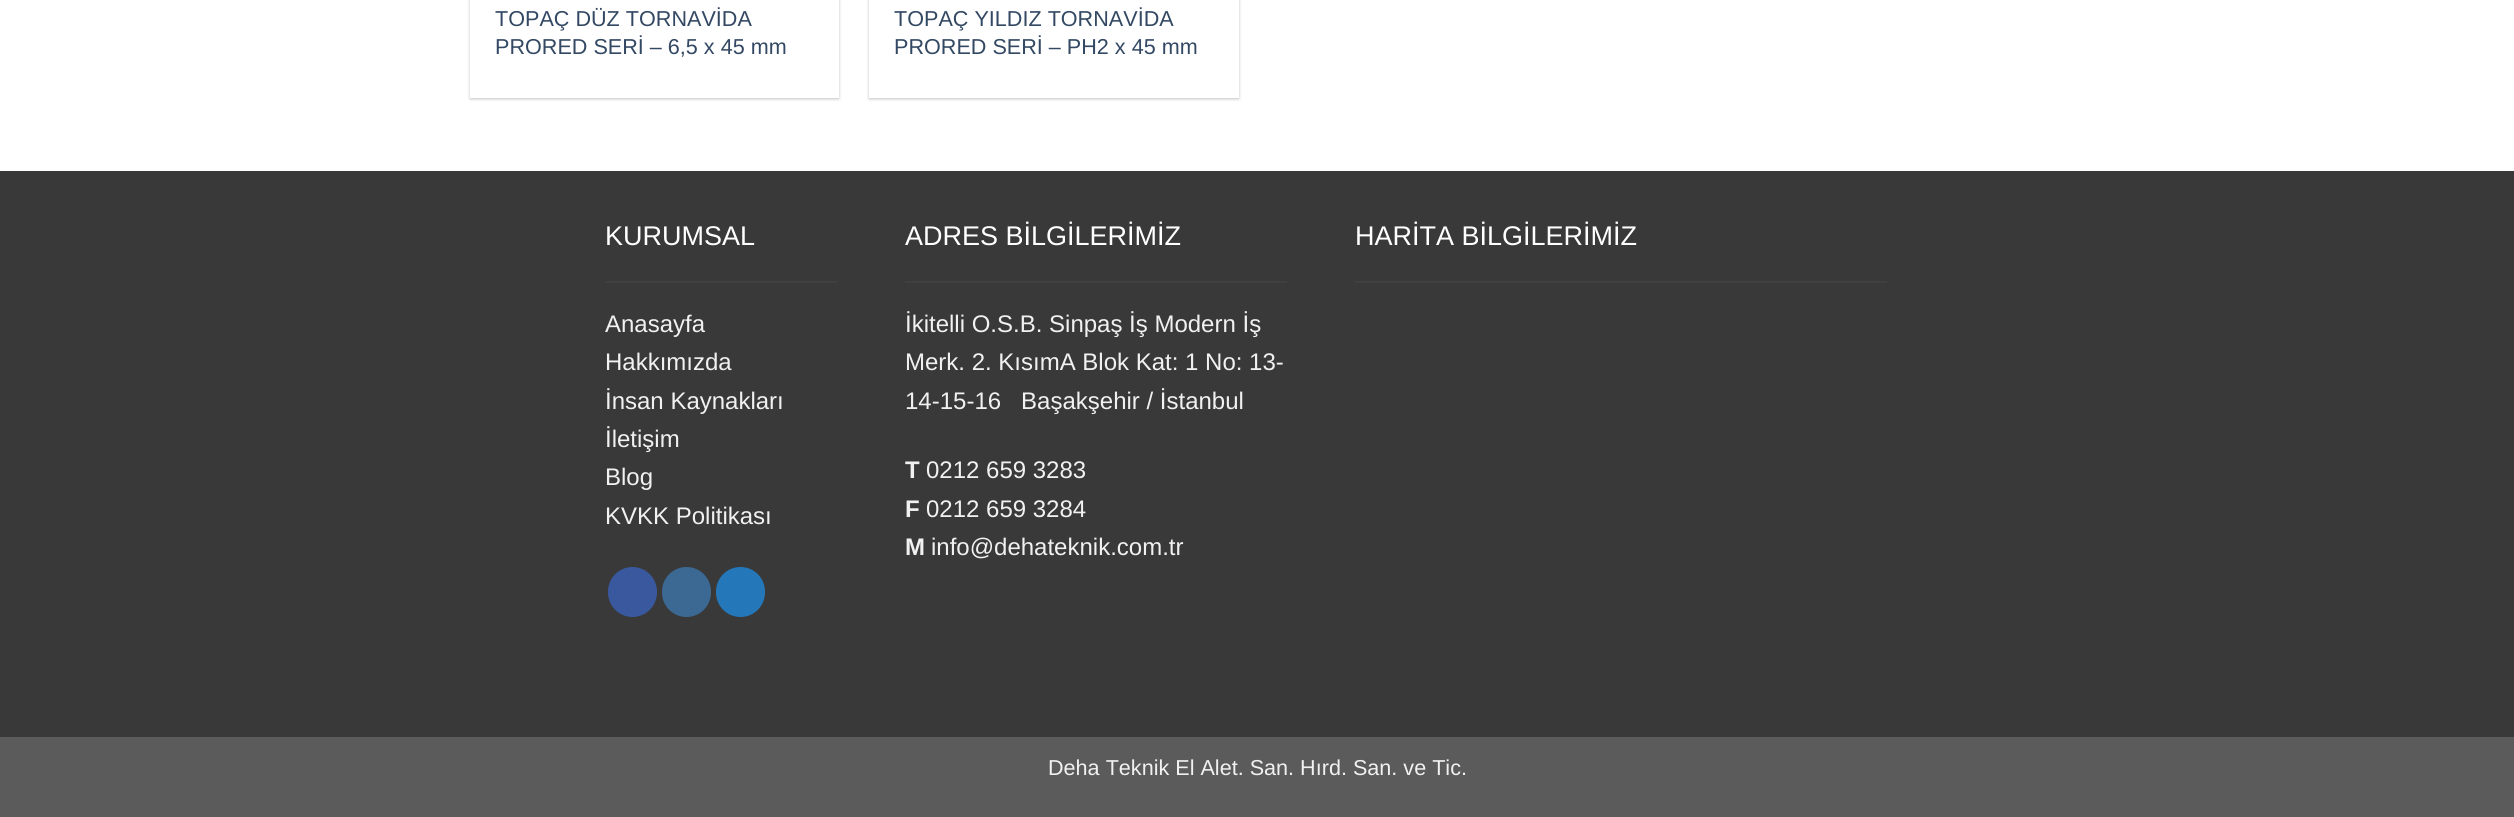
#include <cairo.h>
#include <math.h>
#include <stddef.h>


static void set_color(cairo_t *cr, unsigned color) {
    cairo_set_source_rgb(cr, (color >> 16) / 255.0, (color >> 8 & 255) / 255.0, (color & 255) / 255.0);
}

static void draw_text(cairo_t *cr, double x, double y, const char *s, const char *family, double size, int italic, int bold, unsigned color) {
    cairo_select_font_face(cr, family, italic ? CAIRO_FONT_SLANT_ITALIC : CAIRO_FONT_SLANT_NORMAL,
        bold ? CAIRO_FONT_WEIGHT_BOLD : CAIRO_FONT_WEIGHT_NORMAL);
    cairo_set_font_size(cr, size);
    set_color(cr, color);
    cairo_move_to(cr, x, y);
    cairo_show_text(cr, s);
}

static void fill_rect(cairo_t *cr, double x, double y, double w, double h, unsigned color) {
    set_color(cr, color);
    cairo_rectangle(cr, x, y, w, h);
    cairo_fill(cr);
}

static void rounded_rect(cairo_t *cr, double x, double y, double w, double h, double r) {
    cairo_new_sub_path(cr);
    cairo_arc(cr, x + w - r, y + h - r, r, 0, M_PI / 2);
    cairo_arc(cr, x + r, y + h - r, r, M_PI / 2, M_PI);
    cairo_arc(cr, x + r, y + r, r, M_PI, 1.5 * M_PI);
    cairo_arc(cr, x + w - r, y + r, r, 1.5 * M_PI, 2 * M_PI);
    cairo_close_path(cr);
}

static void draw_shadow(cairo_t *cr, double x, double y, double w, double h, double r, double blur, double alpha) {
    cairo_push_group_with_content(cr, CAIRO_CONTENT_ALPHA);
    cairo_set_operator(cr, CAIRO_OPERATOR_SOURCE);
    for (int i = 15; i >= -15 && fmin(w, h) + blur * i / 3 > 0; i -= 2) {
        double e = blur * i / 6;
        cairo_set_source_rgba(cr, 0, 0, 0, alpha * erfc((i - 1) / 8.5) / 2);
        rounded_rect(cr, x - e, y - e, w + 2 * e, h + 2 * e, fmax(0, fmin(r + e + blur * .6, fmin(w, h) / 2 + e)));
        cairo_fill(cr);
    }
    cairo_pattern_t *soft = cairo_pop_group(cr);
    cairo_mask(cr, soft);
    cairo_pattern_destroy(soft);
}

int main(void) {
    cairo_surface_t *surface = cairo_image_surface_create(CAIRO_FORMAT_RGB24, 2514, 817);
    cairo_t *cr = cairo_create(surface);
    cairo_font_options_t *options = cairo_font_options_create();
    cairo_font_options_set_hint_metrics(options, CAIRO_HINT_METRICS_OFF);
    cairo_font_options_set_hint_style(options, CAIRO_HINT_STYLE_NONE);
    cairo_set_font_options(cr, options);
    cairo_set_miter_limit(cr, 4);
    set_color(cr, 0xFFFFFF);
    cairo_paint(cr);
    set_color(cr, 0x000000);
    draw_shadow(cr, 470, -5, 369, 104, 0, 1.5, 0.24);
    fill_rect(cr, 470, 0, 369, 98, 0xFFFFFF);
    draw_text(cr, 495, 26, "TOPAÇ DÜZ TORNAVİDA", "Liberation Sans", 21.6, 0, 0, 0x334862);
    draw_text(cr, 495, 54, "PRORED SERİ – 6,5 x 45 mm", "Liberation Sans", 21.6, 0, 0, 0x334862);
    set_color(cr, 0x000000);
    draw_shadow(cr, 869, -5, 370, 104, 0, 1.5, 0.24);
    fill_rect(cr, 869, 0, 370, 98, 0xFFFFFF);
    draw_text(cr, 894, 26, "TOPAÇ YILDIZ TORNAVİDA", "Liberation Sans", 21.6, 0, 0, 0x334862);
    draw_text(cr, 894, 54, "PRORED SERİ – PH2 x 45 mm", "Liberation Sans", 21.6, 0, 0, 0x334862);
    fill_rect(cr, 0, 171, 2514, 566, 0x393939);
    draw_text(cr, 605, 245, "KURUMSAL", "Liberation Sans", 27, 0, 0, 0xFFFFFF);
    fill_rect(cr, 605, 281, 232, 2, 0x404040);
    draw_text(cr, 605, 332, "Anasayfa", "Liberation Sans", 24, 0, 0, 0xF1F1F1);
    draw_text(cr, 605, 370, "Hakkımızda", "Liberation Sans", 24, 0, 0, 0xF1F1F1);
    draw_text(cr, 605, 409, "İnsan Kaynakları", "Liberation Sans", 24, 0, 0, 0xF1F1F1);
    draw_text(cr, 605, 447, "İletişim", "Liberation Sans", 24, 0, 0, 0xF1F1F1);
    draw_text(cr, 605, 485, "Blog", "Liberation Sans", 24, 0, 0, 0xF1F1F1);
    draw_text(cr, 605, 524, "KVKK Politikası", "Liberation Sans", 24, 0, 0, 0xF1F1F1);
    set_color(cr, 0x3A589D);
    rounded_rect(cr, 609, 568, 47, 48, 23.5);
    cairo_fill_preserve(cr);
    cairo_stroke(cr);
    set_color(cr, 0x3B6994);
    rounded_rect(cr, 663, 568, 47, 48, 23.5);
    cairo_fill_preserve(cr);
    cairo_stroke(cr);
    set_color(cr, 0x2478BA);
    rounded_rect(cr, 717, 568, 47, 48, 23.5);
    cairo_fill_preserve(cr);
    cairo_stroke(cr);
    draw_text(cr, 905, 245, "ADRES BİLGİLERİMİZ", "Liberation Sans", 27, 0, 0, 0xFFFFFF);
    fill_rect(cr, 905, 281, 382, 2, 0x404040);
    draw_text(cr, 905, 332, "İkitelli O.S.B. Sinpaş İş Modern İş", "Liberation Sans", 24, 0, 0, 0xF1F1F1);
    draw_text(cr, 905, 370, "Merk. 2. KısımA Blok Kat: 1 No: 13-", "Liberation Sans", 24, 0, 0, 0xF1F1F1);
    draw_text(cr, 905, 409, "14-15-16   Başakşehir / İstanbul", "Liberation Sans", 24, 0, 0, 0xF1F1F1);
    draw_text(cr, 905, 478, "T", "Liberation Sans", 24, 0, 1, 0xF1F1F1);
    draw_text(cr, 926, 478, "0212 659 3283", "Liberation Sans", 24, 0, 0, 0xF1F1F1);
    draw_text(cr, 905, 517, "F", "Liberation Sans", 24, 0, 1, 0xF1F1F1);
    draw_text(cr, 926, 517, "0212 659 3284", "Liberation Sans", 24, 0, 0, 0xF1F1F1);
    draw_text(cr, 905, 555, "M", "Liberation Sans", 24, 0, 1, 0xF1F1F1);
    draw_text(cr, 931, 555, "info@dehateknik.com.tr", "Liberation Sans", 24, 0, 0, 0xF1F1F1);
    draw_text(cr, 1355, 245, "HARİTA BİLGİLERİMİZ", "Liberation Sans", 27, 0, 0, 0xFFFFFF);
    fill_rect(cr, 1355, 281, 532, 2, 0x404040);
    fill_rect(cr, 0, 737, 2514, 80, 0x5B5B5B);
    draw_text(cr, 1048, 775, "Deha Teknik El Alet. San. Hırd. San. ve Tic.", "Liberation Sans", 21.6, 0, 0, 0xF1F1F1);
    cairo_surface_write_to_png(surface, "output.png");
    cairo_font_options_destroy(options);
    cairo_destroy(cr);
    cairo_surface_destroy(surface);
    return 0;
}
